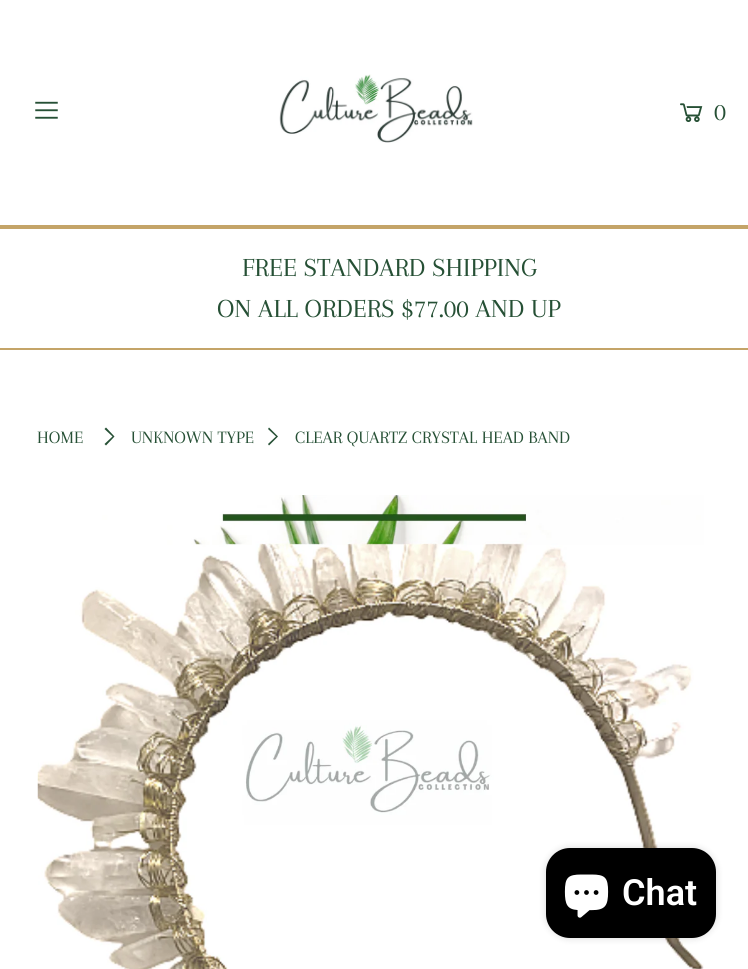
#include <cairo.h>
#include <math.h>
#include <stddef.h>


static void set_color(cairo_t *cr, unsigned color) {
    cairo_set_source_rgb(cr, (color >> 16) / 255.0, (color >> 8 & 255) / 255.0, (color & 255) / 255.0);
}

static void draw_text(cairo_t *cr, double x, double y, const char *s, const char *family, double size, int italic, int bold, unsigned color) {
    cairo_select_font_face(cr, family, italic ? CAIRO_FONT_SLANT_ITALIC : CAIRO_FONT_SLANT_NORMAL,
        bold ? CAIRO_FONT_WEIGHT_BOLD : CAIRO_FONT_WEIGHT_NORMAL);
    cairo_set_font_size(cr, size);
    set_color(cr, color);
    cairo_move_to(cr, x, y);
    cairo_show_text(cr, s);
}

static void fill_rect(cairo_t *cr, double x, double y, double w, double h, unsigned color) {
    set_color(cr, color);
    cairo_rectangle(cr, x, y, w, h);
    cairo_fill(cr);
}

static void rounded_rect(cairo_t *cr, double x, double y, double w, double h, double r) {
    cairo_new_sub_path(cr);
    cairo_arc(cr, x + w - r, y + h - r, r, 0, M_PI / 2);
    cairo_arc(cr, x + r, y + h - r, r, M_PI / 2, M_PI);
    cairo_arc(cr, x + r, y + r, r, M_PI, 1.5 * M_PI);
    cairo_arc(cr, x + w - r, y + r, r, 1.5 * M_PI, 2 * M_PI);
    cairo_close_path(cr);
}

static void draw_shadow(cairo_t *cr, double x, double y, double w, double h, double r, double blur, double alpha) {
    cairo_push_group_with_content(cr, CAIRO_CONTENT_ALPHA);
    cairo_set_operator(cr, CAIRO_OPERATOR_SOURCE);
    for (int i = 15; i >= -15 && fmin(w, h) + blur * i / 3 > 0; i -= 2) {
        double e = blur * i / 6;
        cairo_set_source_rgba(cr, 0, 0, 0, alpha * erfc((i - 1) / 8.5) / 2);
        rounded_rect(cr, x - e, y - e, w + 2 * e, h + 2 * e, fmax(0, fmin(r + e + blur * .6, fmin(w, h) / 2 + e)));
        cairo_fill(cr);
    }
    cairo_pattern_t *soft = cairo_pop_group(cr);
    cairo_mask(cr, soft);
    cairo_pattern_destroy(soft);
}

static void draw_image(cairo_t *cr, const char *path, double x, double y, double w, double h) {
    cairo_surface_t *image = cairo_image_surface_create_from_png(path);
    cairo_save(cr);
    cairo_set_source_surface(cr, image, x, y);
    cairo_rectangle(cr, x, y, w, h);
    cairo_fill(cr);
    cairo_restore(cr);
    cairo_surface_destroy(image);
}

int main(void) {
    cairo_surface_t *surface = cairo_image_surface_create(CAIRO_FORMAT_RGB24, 748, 969);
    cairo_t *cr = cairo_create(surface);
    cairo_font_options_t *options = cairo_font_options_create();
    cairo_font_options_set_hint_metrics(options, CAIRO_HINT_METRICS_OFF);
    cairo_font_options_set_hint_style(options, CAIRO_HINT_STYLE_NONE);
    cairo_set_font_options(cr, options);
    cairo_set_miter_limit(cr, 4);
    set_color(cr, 0xFFFFFF);
    cairo_paint(cr);
    draw_image(cr, "assets/img1.png", 35, 101, 23, 18);
    draw_image(cr, "assets/img2.png", 279, 74, 194, 69);
    draw_image(cr, "assets/img3.png", 680, 103, 23, 19);
    draw_text(cr, 714, 120, "0", "Arapey", 26, 0, 0, 0x265035);
    fill_rect(cr, 0, 225, 748, 4, 0xC4A468);
    fill_rect(cr, 0, 348, 748, 2, 0xC4A468);
    draw_text(cr, 242, 276, "FREE STANDARD SHIPPING", "Arapey", 27, 0, 0, 0x265035);
    draw_text(cr, 217, 317, "ON ALL ORDERS $77.00 AND UP", "Arapey", 27, 0, 0, 0x265035);
    draw_text(cr, 37, 443, "HOME", "Arapey", 18, 0, 0, 0x265035);
    cairo_new_path(cr);
    cairo_move_to(cr, 106, 427.5);
    cairo_line_to(cr, 114.5, 436.5);
    cairo_line_to(cr, 106, 445.5);
    cairo_line_to(cr, 104.5, 444);
    cairo_line_to(cr, 112.5, 436.5);
    cairo_line_to(cr, 104.5, 429);
    cairo_close_path(cr);
    cairo_fill(cr);
    draw_text(cr, 131, 443, "UNKNOWN TYPE", "Arapey", 18, 0, 0, 0x265035);
    cairo_new_path(cr);
    cairo_move_to(cr, 269, 427.5);
    cairo_line_to(cr, 278, 436.5);
    cairo_line_to(cr, 269, 445.5);
    cairo_line_to(cr, 268, 444);
    cairo_line_to(cr, 276, 436.5);
    cairo_line_to(cr, 268, 429);
    cairo_close_path(cr);
    cairo_fill(cr);
    draw_text(cr, 295, 443, "CLEAR QUARTZ CRYSTAL HEAD BAND", "Arapey", 18, 0, 0, 0x265035);
    draw_image(cr, "assets/img4.png", 37, 495, 667, 474);
    set_color(cr, 0x000000);
    draw_shadow(cr, 546, 848, 170, 90, 24, 4, 0.15);
    set_color(cr, 0x000000);
    rounded_rect(cr, 546, 848, 170, 90, 24);
    cairo_fill(cr);
    draw_image(cr, "assets/img5.png", 564, 874, 45, 44);
    draw_text(cr, 622, 905, "Chat", "Roboto SemiBold", 36, 0, 0, 0xFFFFFF);
    cairo_surface_write_to_png(surface, "output.png");
    cairo_font_options_destroy(options);
    cairo_destroy(cr);
    cairo_surface_destroy(surface);
    return 0;
}
